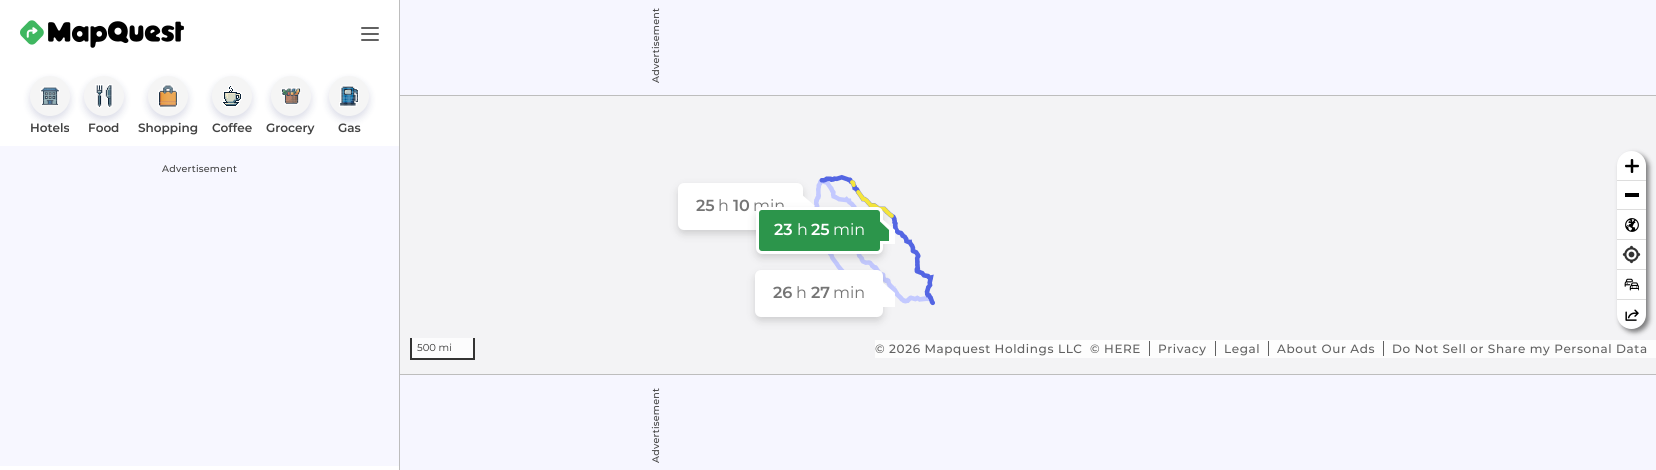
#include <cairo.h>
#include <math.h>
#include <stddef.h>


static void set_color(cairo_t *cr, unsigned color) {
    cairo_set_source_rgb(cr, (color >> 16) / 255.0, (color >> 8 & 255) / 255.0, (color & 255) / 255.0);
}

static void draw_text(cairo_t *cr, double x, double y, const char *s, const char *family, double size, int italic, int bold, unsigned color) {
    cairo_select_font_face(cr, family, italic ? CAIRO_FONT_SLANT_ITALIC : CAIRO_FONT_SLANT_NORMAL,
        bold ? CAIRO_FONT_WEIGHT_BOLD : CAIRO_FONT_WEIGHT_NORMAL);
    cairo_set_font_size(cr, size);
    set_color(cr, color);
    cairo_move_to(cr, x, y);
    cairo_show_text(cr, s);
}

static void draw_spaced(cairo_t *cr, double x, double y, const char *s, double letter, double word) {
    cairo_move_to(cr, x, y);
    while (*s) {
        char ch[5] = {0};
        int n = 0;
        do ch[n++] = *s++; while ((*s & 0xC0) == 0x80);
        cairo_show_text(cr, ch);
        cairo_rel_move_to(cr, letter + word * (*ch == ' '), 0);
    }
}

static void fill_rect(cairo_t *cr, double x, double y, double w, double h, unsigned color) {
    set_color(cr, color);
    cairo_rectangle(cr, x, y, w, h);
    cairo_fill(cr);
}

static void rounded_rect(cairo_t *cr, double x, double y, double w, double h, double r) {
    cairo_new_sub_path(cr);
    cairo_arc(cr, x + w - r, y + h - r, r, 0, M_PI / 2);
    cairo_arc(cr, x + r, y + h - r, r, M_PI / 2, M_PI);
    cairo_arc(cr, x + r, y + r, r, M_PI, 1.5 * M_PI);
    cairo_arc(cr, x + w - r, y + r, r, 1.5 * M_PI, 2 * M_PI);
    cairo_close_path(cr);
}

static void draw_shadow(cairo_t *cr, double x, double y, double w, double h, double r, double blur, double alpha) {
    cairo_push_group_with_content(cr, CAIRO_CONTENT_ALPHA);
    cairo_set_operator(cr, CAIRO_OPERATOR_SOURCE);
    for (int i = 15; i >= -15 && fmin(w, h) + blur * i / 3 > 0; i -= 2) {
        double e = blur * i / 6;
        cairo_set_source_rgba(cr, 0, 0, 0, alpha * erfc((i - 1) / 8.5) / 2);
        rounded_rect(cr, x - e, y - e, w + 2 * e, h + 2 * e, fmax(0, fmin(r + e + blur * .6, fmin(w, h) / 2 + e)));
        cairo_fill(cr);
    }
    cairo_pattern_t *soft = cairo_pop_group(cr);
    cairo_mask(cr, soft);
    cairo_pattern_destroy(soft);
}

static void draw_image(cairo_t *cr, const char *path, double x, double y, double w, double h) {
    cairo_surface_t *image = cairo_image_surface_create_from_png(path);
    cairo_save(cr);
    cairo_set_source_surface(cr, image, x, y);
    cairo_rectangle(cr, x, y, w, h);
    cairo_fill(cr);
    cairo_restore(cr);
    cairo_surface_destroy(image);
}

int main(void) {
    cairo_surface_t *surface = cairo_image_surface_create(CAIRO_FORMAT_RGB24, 1656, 470);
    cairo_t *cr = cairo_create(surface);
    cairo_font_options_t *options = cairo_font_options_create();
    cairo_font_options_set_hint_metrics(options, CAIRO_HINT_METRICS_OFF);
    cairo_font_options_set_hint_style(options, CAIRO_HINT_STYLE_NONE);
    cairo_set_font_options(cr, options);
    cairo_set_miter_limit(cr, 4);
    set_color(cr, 0xFFFFFF);
    cairo_paint(cr);
    fill_rect(cr, 400, 0, 1256, 95, 0xF6F6FF);
    fill_rect(cr, 400, 95, 1256, 1, 0xBDBDBD);
    cairo_select_font_face(cr, "Montserrat Medium", CAIRO_FONT_SLANT_NORMAL, CAIRO_FONT_WEIGHT_NORMAL);
    cairo_set_font_size(cr, 9.5);
    set_color(cr, 0x424242);
    cairo_save(cr);
    cairo_translate(cr, 659, 83);
    cairo_rotate(cr, -90 * M_PI / 180);
    draw_spaced(cr, 0, 0, "Advertisement", 0.25, 0);
    cairo_restore(cr);
    fill_rect(cr, 399, 0, 1, 470, 0xBDBDBD);
    draw_image(cr, "assets/img1.png", 20, 20, 164, 28);
    draw_image(cr, "assets/img2.png", 361, 27, 18, 14);
    set_color(cr, 0x0D1660);
    draw_shadow(cr, 30, 80, 40, 40, 20, 4, 0.15);
    set_color(cr, 0xF5F5F5);
    cairo_arc(cr, 50, 96, 20, 0, 2 * M_PI);
    cairo_fill(cr);
    draw_image(cr, "assets/img3.png", 40, 86, 20, 20);
    draw_text(cr, 30, 132, "Hotels", "Montserrat SemiBold", 12, 0, 0, 0x424242);
    set_color(cr, 0x0D1660);
    draw_shadow(cr, 84, 80, 40, 40, 20, 4, 0.15);
    set_color(cr, 0xF5F5F5);
    cairo_arc(cr, 104, 96, 20, 0, 2 * M_PI);
    cairo_fill(cr);
    draw_image(cr, "assets/img4.png", 95, 84, 18, 24);
    draw_text(cr, 88, 132, "Food", "Montserrat SemiBold", 12, 0, 0, 0x424242);
    set_color(cr, 0x0D1660);
    draw_shadow(cr, 148, 80, 40, 40, 20, 4, 0.15);
    set_color(cr, 0xF5F5F5);
    cairo_arc(cr, 168, 96, 20, 0, 2 * M_PI);
    cairo_fill(cr);
    draw_image(cr, "assets/img5.png", 158, 84, 20, 24);
    draw_text(cr, 138, 132, "Shopping", "Montserrat SemiBold", 12, 0, 0, 0x424242);
    set_color(cr, 0x0D1660);
    draw_shadow(cr, 212, 80, 40, 40, 20, 4, 0.15);
    set_color(cr, 0xF5F5F5);
    cairo_arc(cr, 232, 96, 20, 0, 2 * M_PI);
    cairo_fill(cr);
    draw_image(cr, "assets/img6.png", 222, 85, 20, 22);
    draw_text(cr, 212, 132, "Coffee", "Montserrat SemiBold", 12, 0, 0, 0x424242);
    set_color(cr, 0x0D1660);
    draw_shadow(cr, 271, 80, 40, 40, 20, 4, 0.15);
    set_color(cr, 0xF5F5F5);
    cairo_arc(cr, 291, 96, 20, 0, 2 * M_PI);
    cairo_fill(cr);
    draw_image(cr, "assets/img7.png", 281, 87, 20, 18);
    draw_text(cr, 266, 132, "Grocery", "Montserrat SemiBold", 12, 0, 0, 0x424242);
    set_color(cr, 0x0D1660);
    draw_shadow(cr, 329, 80, 40, 40, 20, 4, 0.15);
    set_color(cr, 0xF5F5F5);
    cairo_arc(cr, 349, 96, 20, 0, 2 * M_PI);
    cairo_fill(cr);
    draw_image(cr, "assets/img8.png", 339, 85, 20, 22);
    draw_text(cr, 338, 132, "Gas", "Montserrat SemiBold", 12, 0, 0, 0x424242);
    fill_rect(cr, 0, 146, 399, 320, 0xF7F7FF);
    cairo_select_font_face(cr, "Montserrat Medium", CAIRO_FONT_SLANT_NORMAL, CAIRO_FONT_WEIGHT_NORMAL);
    cairo_set_font_size(cr, 9.5);
    set_color(cr, 0x424242);
    draw_spaced(cr, 162, 172, "Advertisement", 0.25, 0);
    draw_image(cr, "assets/img9.png", 400, 96, 1256, 278);
    set_color(cr, 0x3F3F3F);
    draw_shadow(cr, 678, 187, 125, 47, 6, 4, 0.2);
    set_color(cr, 0xFFFFFF);
    rounded_rect(cr, 679.5, 184.5, 122, 44, 4.5);
    cairo_fill_preserve(cr);
    cairo_set_line_width(cr, 3);
    cairo_stroke(cr);
    draw_text(cr, 696, 211, "25", "Montserrat SemiBold", 16, 0, 0, 0x757575);
    draw_text(cr, 718, 211, "h", "Montserrat", 16, 0, 0, 0x757575);
    draw_text(cr, 733, 211, "10", "Montserrat SemiBold", 16, 0, 0, 0x757575);
    draw_text(cr, 753, 211, "min", "Montserrat", 16, 0, 0, 0x757575);
    set_color(cr, 0xFFFFFF);
    cairo_new_path(cr);
    cairo_move_to(cr, 800, 194);
    cairo_line_to(cr, 801, 194);
    cairo_line_to(cr, 815, 206);
    cairo_curve_to(cr, 800.5, 217.5, 800, 219, 800, 219);
    cairo_close_path(cr);
    cairo_fill(cr);
    set_color(cr, 0x3F3F3F);
    draw_shadow(cr, 755, 274, 128, 47, 6, 4, 0.2);
    set_color(cr, 0xFFFFFF);
    rounded_rect(cr, 756.5, 271.5, 125, 44, 4.5);
    cairo_fill_preserve(cr);
    cairo_stroke(cr);
    set_color(cr, 0x3F3F3F);
    draw_shadow(cr, 756, 211, 127, 47, 6, 4, 0.2);
    set_color(cr, 0x2C954B);
    rounded_rect(cr, 757.5, 208.5, 124, 44, 4.5);
    cairo_fill_preserve(cr);
    set_color(cr, 0xFFFFFF);
    cairo_stroke(cr);
    draw_text(cr, 774, 235, "23", "Montserrat SemiBold", 16, 0, 0, 0xFFFFFF);
    draw_text(cr, 797, 235, "h", "Montserrat", 16, 0, 0, 0xFFFFFF);
    draw_text(cr, 811, 235, "25", "Montserrat SemiBold", 16, 0, 0, 0xFFFFFF);
    draw_text(cr, 833, 235, "min", "Montserrat", 16, 0, 0, 0xFFFFFF);
    cairo_new_path(cr);
    cairo_move_to(cr, 880, 218);
    cairo_line_to(cr, 881, 218);
    cairo_line_to(cr, 895, 230);
    cairo_line_to(cr, 895, 244);
    cairo_line_to(cr, 880, 244);
    cairo_close_path(cr);
    cairo_fill(cr);
    set_color(cr, 0x2C954B);
    cairo_new_path(cr);
    cairo_move_to(cr, 879, 221);
    cairo_line_to(cr, 879.5, 221);
    cairo_line_to(cr, 889, 230);
    cairo_line_to(cr, 889, 241);
    cairo_line_to(cr, 879, 241);
    cairo_close_path(cr);
    cairo_fill(cr);
    draw_text(cr, 773, 298, "26", "Montserrat SemiBold", 16, 0, 0, 0x757575);
    draw_text(cr, 796, 298, "h", "Montserrat", 16, 0, 0, 0x757575);
    draw_text(cr, 811, 298, "27", "Montserrat SemiBold", 16, 0, 0, 0x757575);
    draw_text(cr, 833, 298, "min", "Montserrat", 16, 0, 0, 0x757575);
    set_color(cr, 0xFFFFFF);
    cairo_new_path(cr);
    cairo_move_to(cr, 880, 281);
    cairo_line_to(cr, 881, 281);
    cairo_line_to(cr, 895, 293);
    cairo_line_to(cr, 895, 307);
    cairo_line_to(cr, 880, 307);
    cairo_close_path(cr);
    cairo_fill(cr);
    set_color(cr, 0x000000);
    draw_shadow(cr, 1620, 154, 29, 178, 14.5, 2.5, 0.5);
    set_color(cr, 0xFFFFFF);
    rounded_rect(cr, 1617, 151, 29, 178, 14.5);
    cairo_fill(cr);
    fill_rect(cr, 1617, 209, 29, 1, 0xDDDDDD);
    draw_image(cr, "assets/img10.png", 1625, 159, 14, 14);
    fill_rect(cr, 1617, 180, 29, 1, 0xDDDDDD);
    fill_rect(cr, 1625, 193, 14, 4, 0x000000);
    fill_rect(cr, 1617, 239, 29, 1, 0xDDDDDD);
    draw_image(cr, "assets/img11.png", 1625, 218, 14, 14);
    fill_rect(cr, 1617, 269, 29, 1, 0xDDDDDD);
    draw_image(cr, "assets/img12.png", 1622, 245, 19, 19);
    fill_rect(cr, 1617, 299, 29, 1, 0xDDDDDD);
    draw_image(cr, "assets/img13.png", 1624, 278, 15, 13);
    draw_image(cr, "assets/img14.png", 1625, 309, 14, 12);
    fill_rect(cr, 412, 338, 61, 20, 0xFCFCFD);
    fill_rect(cr, 473, 338, 2, 22, 0x333333);
    fill_rect(cr, 410, 358, 65, 2, 0x333333);
    fill_rect(cr, 410, 338, 2, 22, 0x333333);
    draw_text(cr, 417, 351, "500 mi", "Montserrat", 10, 0, 0, 0x333333);
    fill_rect(cr, 875, 340, 781, 18, 0xFDFDFD);
    cairo_select_font_face(cr, "Montserrat Medium", CAIRO_FONT_SLANT_NORMAL, CAIRO_FONT_WEIGHT_NORMAL);
    cairo_set_font_size(cr, 12);
    set_color(cr, 0x616161);
    draw_spaced(cr, 875, 353, "© 2026 Mapquest Holdings LLC", 0.6, 0);
    fill_rect(cr, 1149, 341, 1, 15, 0x616161);
    draw_spaced(cr, 1090, 353, "© HERE", 0.6, 0);
    fill_rect(cr, 1215, 341, 1, 15, 0x616161);
    draw_spaced(cr, 1158, 353, "Privacy", 0.6, 0);
    fill_rect(cr, 1268, 341, 1, 15, 0x616161);
    draw_spaced(cr, 1224, 353, "Legal", 0.6, 0);
    fill_rect(cr, 1383, 341, 1, 15, 0x616161);
    draw_spaced(cr, 1277, 353, "About Our Ads", 0.6, 0);
    draw_spaced(cr, 1392, 353, "Do Not Sell or Share my Personal Data", 0.6, 0);
    fill_rect(cr, 400, 375, 1256, 95, 0xF6F6FF);
    fill_rect(cr, 400, 374, 1256, 1, 0xBDBDBD);
    cairo_set_font_size(cr, 9.5);
    set_color(cr, 0x424242);
    cairo_save(cr);
    cairo_translate(cr, 659, 463);
    cairo_rotate(cr, -90 * M_PI / 180);
    draw_spaced(cr, 0, 0, "Advertisement", 0.25, 0);
    cairo_restore(cr);
    cairo_surface_write_to_png(surface, "output.png");
    cairo_font_options_destroy(options);
    cairo_destroy(cr);
    cairo_surface_destroy(surface);
    return 0;
}
